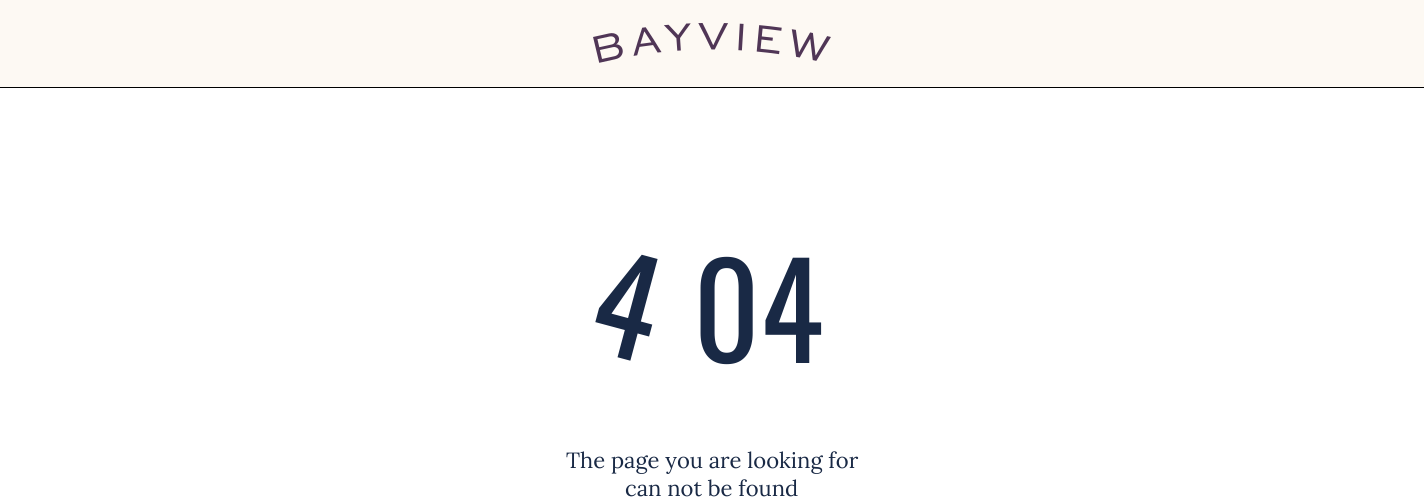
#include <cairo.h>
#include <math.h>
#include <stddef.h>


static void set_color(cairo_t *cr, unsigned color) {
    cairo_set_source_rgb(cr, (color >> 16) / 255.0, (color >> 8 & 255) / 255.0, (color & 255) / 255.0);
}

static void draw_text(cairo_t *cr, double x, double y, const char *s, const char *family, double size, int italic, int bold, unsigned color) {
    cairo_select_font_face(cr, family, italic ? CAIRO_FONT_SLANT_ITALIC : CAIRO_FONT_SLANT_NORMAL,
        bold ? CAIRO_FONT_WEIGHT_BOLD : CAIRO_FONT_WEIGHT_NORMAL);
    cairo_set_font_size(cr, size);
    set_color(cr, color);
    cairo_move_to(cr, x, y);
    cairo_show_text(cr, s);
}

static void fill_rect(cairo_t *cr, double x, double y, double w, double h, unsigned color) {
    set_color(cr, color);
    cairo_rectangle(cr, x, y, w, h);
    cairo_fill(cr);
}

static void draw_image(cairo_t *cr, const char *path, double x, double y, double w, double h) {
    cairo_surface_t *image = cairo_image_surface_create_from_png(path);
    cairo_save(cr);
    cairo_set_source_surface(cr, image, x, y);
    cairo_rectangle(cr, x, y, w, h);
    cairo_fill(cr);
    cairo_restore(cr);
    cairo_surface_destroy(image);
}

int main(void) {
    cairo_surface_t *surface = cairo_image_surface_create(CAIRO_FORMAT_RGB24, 1424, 504);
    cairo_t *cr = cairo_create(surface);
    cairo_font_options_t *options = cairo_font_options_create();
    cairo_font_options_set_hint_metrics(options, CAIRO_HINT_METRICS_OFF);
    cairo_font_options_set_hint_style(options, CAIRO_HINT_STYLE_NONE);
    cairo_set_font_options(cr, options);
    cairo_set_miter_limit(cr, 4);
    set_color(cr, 0xFDF9F3);
    cairo_paint(cr);
    fill_rect(cr, 0, 87, 1424, 1, 0x000000);
    draw_image(cr, "assets/img1.png", 593, 23, 238, 40);
    fill_rect(cr, 0, 88, 1424, 416, 0xFFFFFF);
    cairo_save(cr);
    cairo_translate(cr, 583, 348);
    cairo_rotate(cr, 15 * M_PI / 180);
    draw_text(cr, 0, 0, "4", "Oswald", 130, 0, 0, 0x192945);
    cairo_restore(cr);
    draw_text(cr, 693, 363, "04", "Oswald", 130, 0, 0, 0x192945);
    draw_text(cr, 566, 468, "The page you are looking for", "Lora", 22, 0, 0, 0x192945);
    draw_text(cr, 625, 496, "can not be found", "Lora", 22, 0, 0, 0x192945);
    cairo_surface_write_to_png(surface, "output.png");
    cairo_font_options_destroy(options);
    cairo_destroy(cr);
    cairo_surface_destroy(surface);
    return 0;
}
